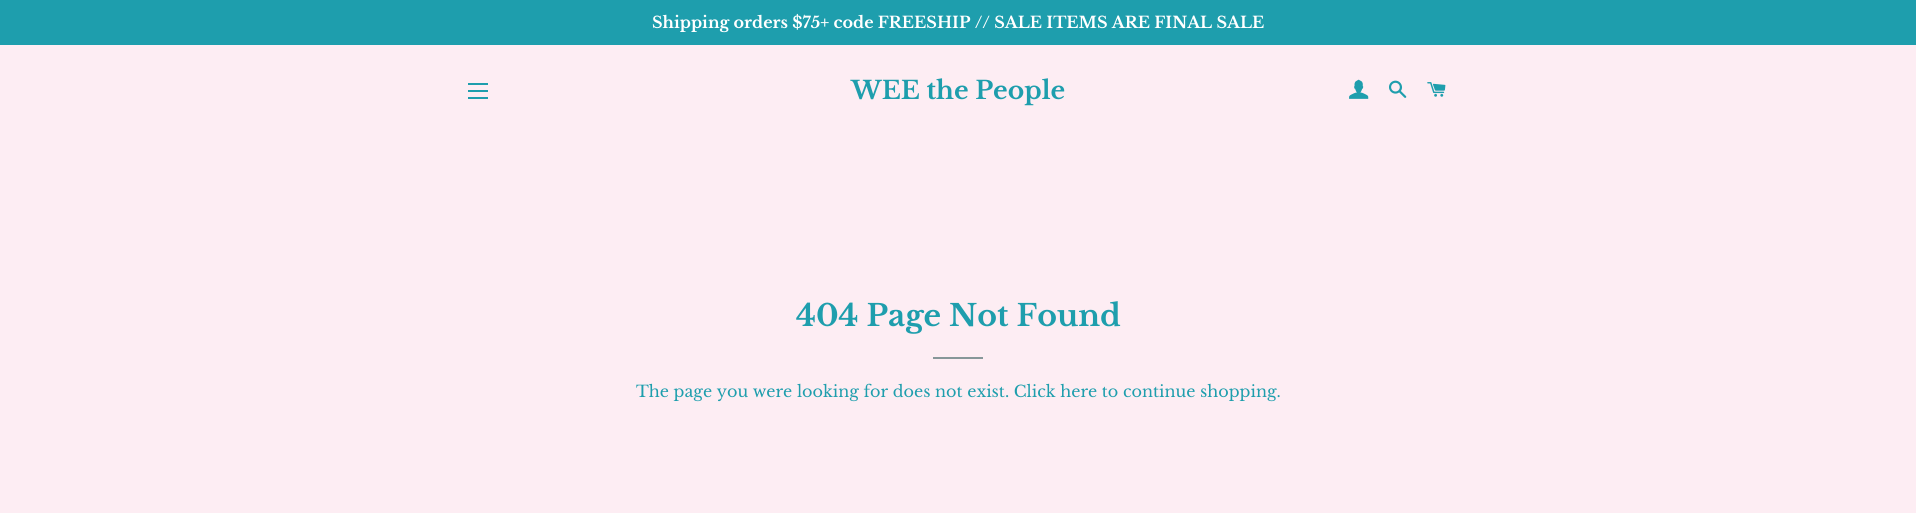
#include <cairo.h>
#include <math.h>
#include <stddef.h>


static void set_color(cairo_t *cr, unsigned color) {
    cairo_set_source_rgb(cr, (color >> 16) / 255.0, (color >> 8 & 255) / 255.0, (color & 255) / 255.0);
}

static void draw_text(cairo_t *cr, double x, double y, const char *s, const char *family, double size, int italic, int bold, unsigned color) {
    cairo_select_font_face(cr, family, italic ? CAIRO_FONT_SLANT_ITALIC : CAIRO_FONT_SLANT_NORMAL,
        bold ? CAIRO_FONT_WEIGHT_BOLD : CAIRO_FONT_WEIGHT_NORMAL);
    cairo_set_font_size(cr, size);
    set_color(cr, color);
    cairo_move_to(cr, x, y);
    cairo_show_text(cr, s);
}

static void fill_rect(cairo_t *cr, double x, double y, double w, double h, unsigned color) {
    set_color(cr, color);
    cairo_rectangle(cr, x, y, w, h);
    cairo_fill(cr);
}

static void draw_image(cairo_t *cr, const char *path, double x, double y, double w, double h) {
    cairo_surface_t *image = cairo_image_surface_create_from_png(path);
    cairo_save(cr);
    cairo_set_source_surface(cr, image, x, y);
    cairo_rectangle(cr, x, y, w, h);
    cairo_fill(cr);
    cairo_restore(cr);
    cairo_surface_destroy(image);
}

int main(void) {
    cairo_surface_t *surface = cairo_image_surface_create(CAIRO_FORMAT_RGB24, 1916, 513);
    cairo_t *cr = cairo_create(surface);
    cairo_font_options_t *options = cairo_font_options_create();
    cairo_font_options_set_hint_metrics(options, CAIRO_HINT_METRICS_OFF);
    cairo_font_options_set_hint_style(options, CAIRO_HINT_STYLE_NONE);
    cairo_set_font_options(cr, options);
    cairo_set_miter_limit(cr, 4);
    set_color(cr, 0xFDEDF3);
    cairo_paint(cr);
    fill_rect(cr, 0, 0, 1916, 45, 0x1E9EAD);
    draw_text(cr, 652, 28, "Shipping orders $75+ code FREESHIP // SALE ITEMS ARE FINAL SALE", "Libre Baskerville", 16, 0, 1, 0xFFFFFF);
    fill_rect(cr, 468, 83, 20, 2, 0x1E9EAD);
    fill_rect(cr, 468, 90, 20, 2, 0x1E9EAD);
    fill_rect(cr, 468, 97, 20, 2, 0x1E9EAD);
    draw_text(cr, 851, 99, "WEE the People", "Libre Baskerville", 25, 0, 1, 0x1E9EAD);
    draw_image(cr, "assets/img1.png", 1349, 79, 20, 20);
    draw_image(cr, "assets/img2.png", 1389, 80, 18, 18);
    draw_image(cr, "assets/img3.png", 1427, 82, 19, 15);
    draw_text(cr, 796, 326, "404 Page Not Found", "Libre Baskerville", 30, 0, 1, 0x1E9EAD);
    fill_rect(cr, 933, 357, 50, 2, 0x879799);
    draw_text(cr, 636, 397, "The page you were looking for does not exist. Click here to continue shopping.", "Libre Baskerville", 16, 0, 0, 0x1E9EAD);
    cairo_surface_write_to_png(surface, "output.png");
    cairo_font_options_destroy(options);
    cairo_destroy(cr);
    cairo_surface_destroy(surface);
    return 0;
}
